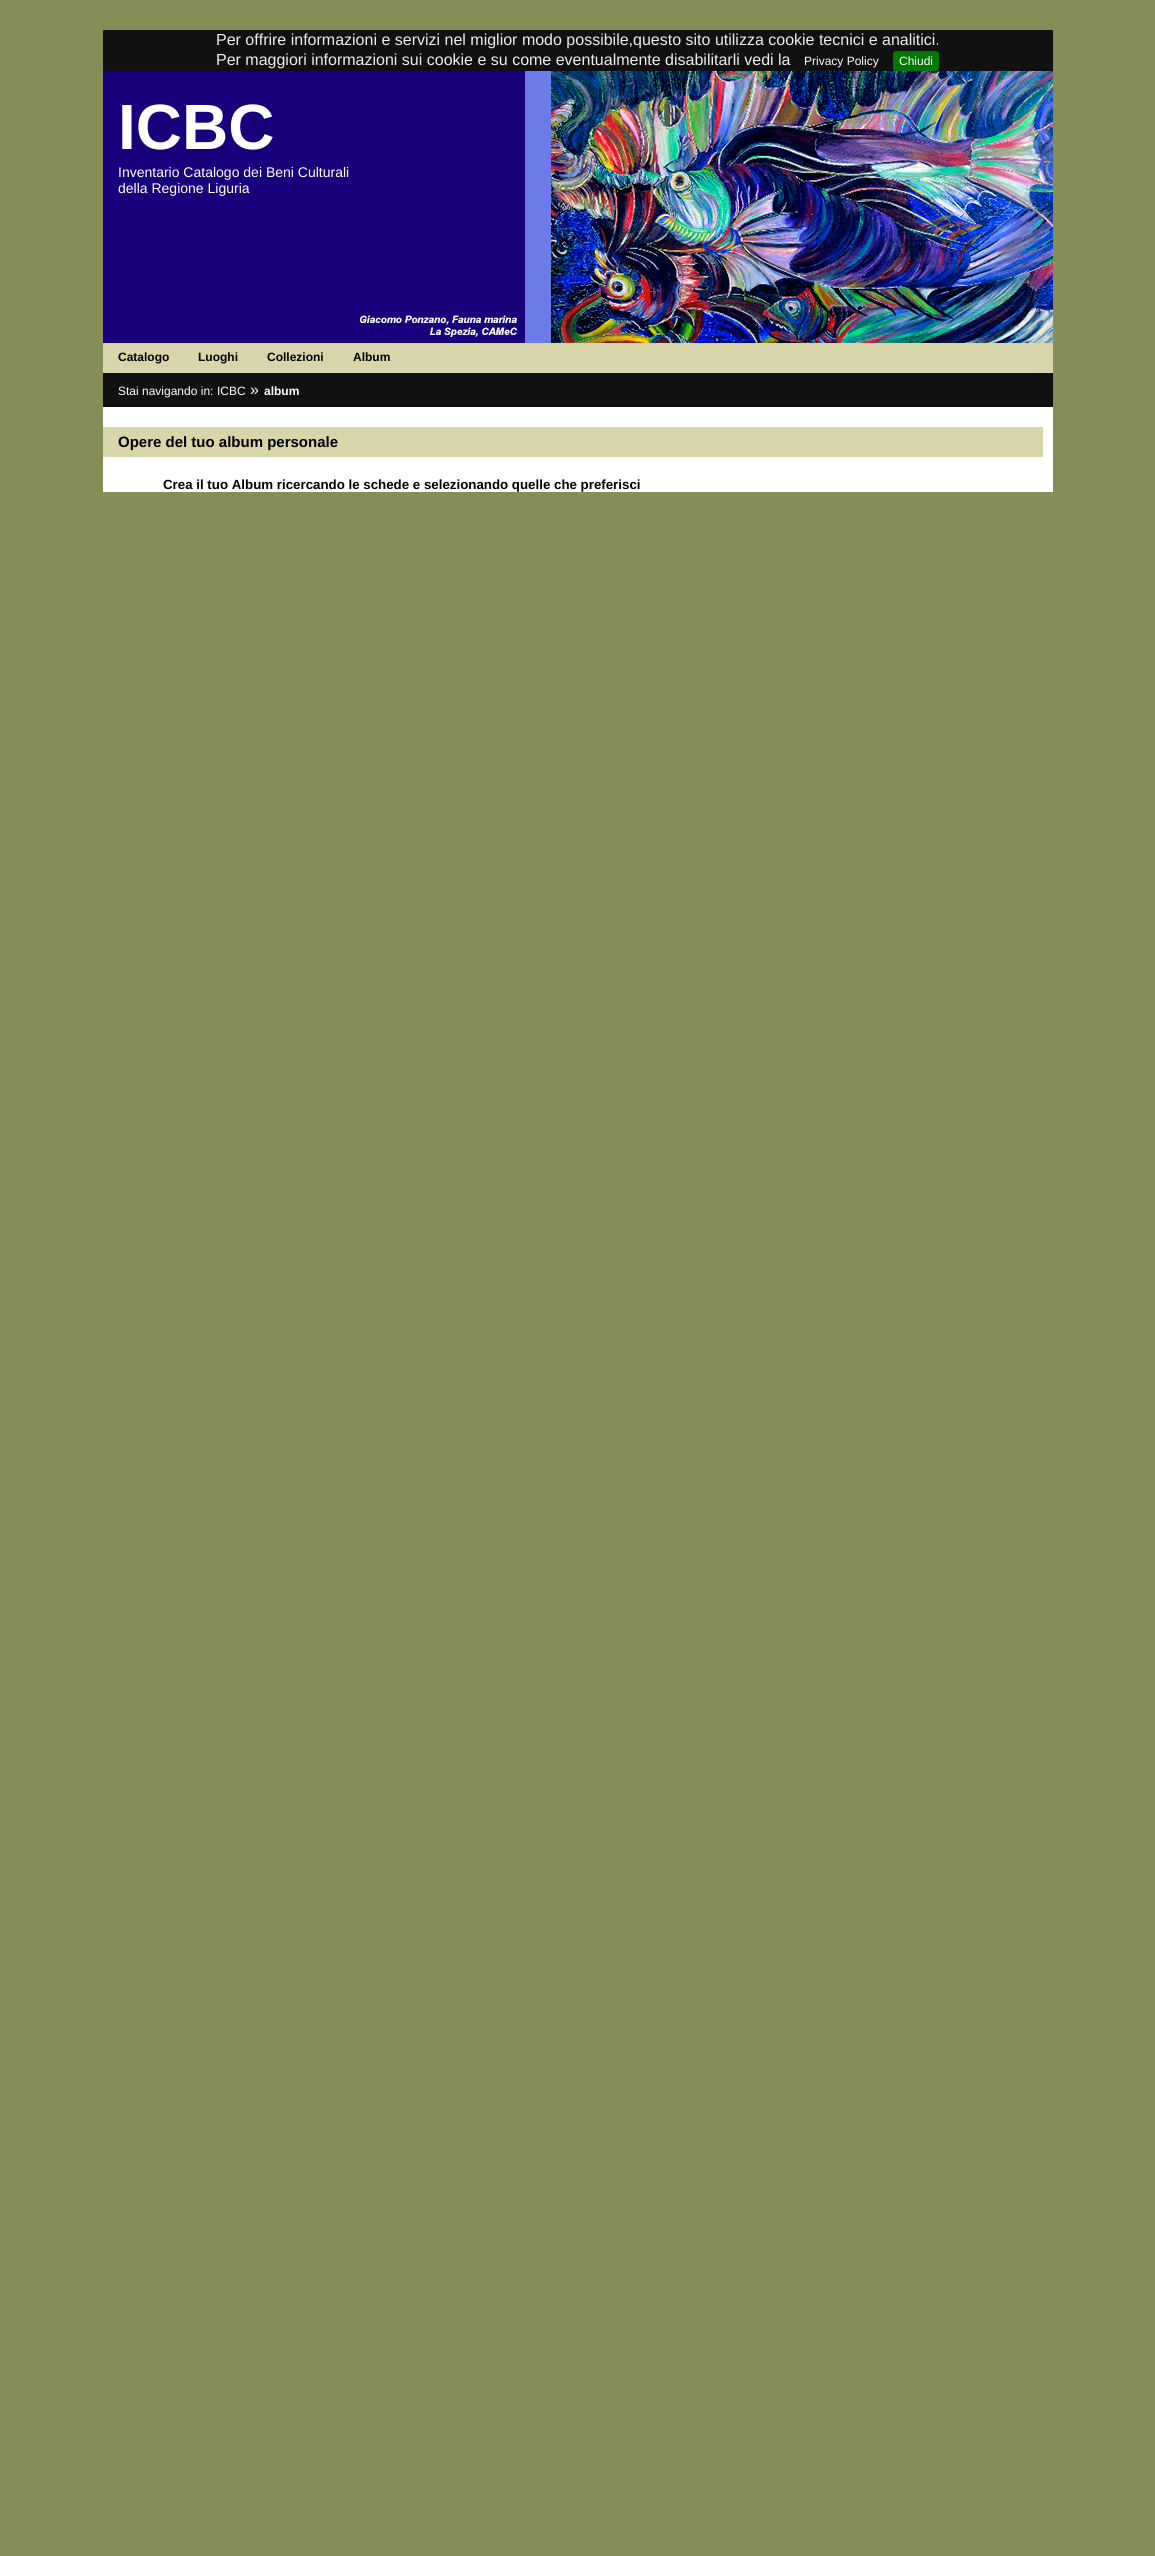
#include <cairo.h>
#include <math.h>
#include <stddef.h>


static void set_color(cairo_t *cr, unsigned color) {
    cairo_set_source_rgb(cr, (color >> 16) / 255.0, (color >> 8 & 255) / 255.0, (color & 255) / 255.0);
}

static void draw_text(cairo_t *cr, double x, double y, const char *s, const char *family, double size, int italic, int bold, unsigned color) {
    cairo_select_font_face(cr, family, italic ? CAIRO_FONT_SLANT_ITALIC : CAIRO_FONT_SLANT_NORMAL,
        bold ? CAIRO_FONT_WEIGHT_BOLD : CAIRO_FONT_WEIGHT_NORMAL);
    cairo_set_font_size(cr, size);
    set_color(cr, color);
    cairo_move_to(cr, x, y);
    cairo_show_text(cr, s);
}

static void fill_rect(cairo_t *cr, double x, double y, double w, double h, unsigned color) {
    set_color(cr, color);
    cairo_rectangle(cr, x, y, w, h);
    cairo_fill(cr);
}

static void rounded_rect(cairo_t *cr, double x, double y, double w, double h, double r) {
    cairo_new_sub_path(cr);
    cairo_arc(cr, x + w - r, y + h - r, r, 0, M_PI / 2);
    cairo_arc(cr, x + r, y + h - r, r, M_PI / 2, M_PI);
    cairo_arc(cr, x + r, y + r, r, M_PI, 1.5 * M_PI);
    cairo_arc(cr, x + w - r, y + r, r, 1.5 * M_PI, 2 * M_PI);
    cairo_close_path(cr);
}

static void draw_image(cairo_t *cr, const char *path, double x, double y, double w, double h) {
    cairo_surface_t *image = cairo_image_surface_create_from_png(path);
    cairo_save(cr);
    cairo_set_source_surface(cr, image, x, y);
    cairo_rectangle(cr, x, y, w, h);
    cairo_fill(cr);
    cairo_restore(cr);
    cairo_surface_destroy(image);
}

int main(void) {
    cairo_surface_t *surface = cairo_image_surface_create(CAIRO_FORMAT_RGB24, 1155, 2556);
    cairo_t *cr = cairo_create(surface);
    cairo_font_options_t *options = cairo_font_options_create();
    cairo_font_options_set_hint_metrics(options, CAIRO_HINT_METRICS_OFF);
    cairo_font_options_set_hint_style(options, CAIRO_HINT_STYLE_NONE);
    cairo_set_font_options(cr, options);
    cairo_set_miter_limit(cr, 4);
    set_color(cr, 0x848E56);
    cairo_paint(cr);
    fill_rect(cr, 103, 30, 950, 41, 0x111111);
    draw_text(cr, 216, 45, "Per offrire informazioni e servizi nel miglior modo possibile,questo sito utilizza cookie tecnici e analitici.", "Liberation Sans", 16, 0, 0, 0xEEEEEE);
    draw_text(cr, 216, 65, "Per maggiori informazioni sui cookie e su come eventualmente disabilitarli vedi la", "Liberation Sans", 16, 0, 0, 0xEEEEEE);
    draw_text(cr, 804, 65, "Privacy Policy", "Liberation Sans", 12, 0, 0, 0xFFFFFF);
    set_color(cr, 0x007700);
    rounded_rect(cr, 893, 51, 46, 20, 3);
    cairo_fill(cr);
    draw_text(cr, 899, 65, "Chiudi", "Liberation Sans", 12, 0, 0, 0xFFFFFF);
    fill_rect(cr, 103, 407, 950, 85, 0xFFFFFF);
    draw_image(cr, "assets/img1.png", 103, 71, 950, 272);
    draw_text(cr, 118, 149, "ICBC", "Liberation Sans", 64, 0, 1, 0xFFFFFF);
    draw_text(cr, 118, 177, "Inventario Catalogo dei Beni Culturali", "Liberation Sans", 14, 0, 0, 0xFFFFFF);
    draw_text(cr, 118, 193, "della Regione Liguria", "Liberation Sans", 14, 0, 0, 0xFFFFFF);
    fill_rect(cr, 104, 343, 949, 30, 0xD8D5AA);
    fill_rect(cr, 103, 343, 1, 30, 0xD7D7A9);
    draw_text(cr, 118, 361, "Catalogo", "Liberation Sans", 12, 0, 1, 0x000000);
    draw_text(cr, 198, 361, "Luoghi", "Liberation Sans", 12, 0, 1, 0x000000);
    draw_text(cr, 267, 361, "Collezioni", "Liberation Sans", 12, 0, 1, 0x000000);
    draw_text(cr, 353, 361, "Album", "Liberation Sans", 12, 0, 1, 0x000000);
    fill_rect(cr, 103, 373, 950, 34, 0x111111);
    draw_text(cr, 118, 395, "Stai navigando in:", "Liberation Sans", 12, 0, 0, 0xFFFFFF);
    draw_text(cr, 217, 395, "ICBC", "Liberation Sans", 12, 0, 0, 0xFFFFFF);
    draw_text(cr, 250, 395, "»", "Liberation Sans", 16, 0, 0, 0xFFFFFF);
    draw_text(cr, 264, 395, "album", "Liberation Sans", 12, 0, 1, 0xFFFFFF);
    fill_rect(cr, 103, 427, 940, 30, 0xD8D5AA);
    draw_text(cr, 118, 447, "Opere del tuo album personale", "Liberation Sans", 15, 0, 1, 0x000000);
    draw_text(cr, 163, 489, "Crea il tuo Album ricercando le schede e selezionando quelle che preferisci", "Liberation Sans", 13.3, 0, 1, 0x000000);
    cairo_surface_write_to_png(surface, "output.png");
    cairo_font_options_destroy(options);
    cairo_destroy(cr);
    cairo_surface_destroy(surface);
    return 0;
}
